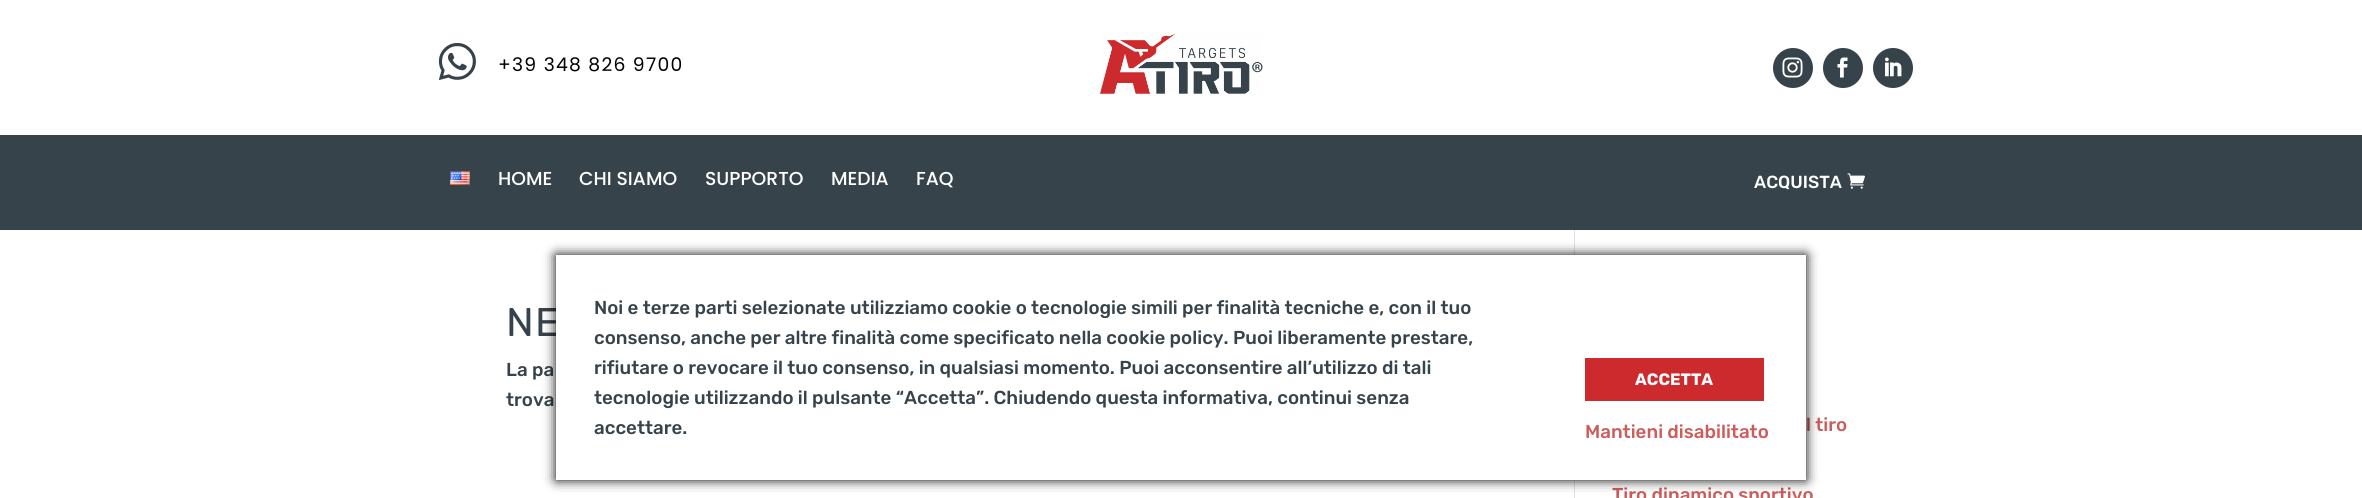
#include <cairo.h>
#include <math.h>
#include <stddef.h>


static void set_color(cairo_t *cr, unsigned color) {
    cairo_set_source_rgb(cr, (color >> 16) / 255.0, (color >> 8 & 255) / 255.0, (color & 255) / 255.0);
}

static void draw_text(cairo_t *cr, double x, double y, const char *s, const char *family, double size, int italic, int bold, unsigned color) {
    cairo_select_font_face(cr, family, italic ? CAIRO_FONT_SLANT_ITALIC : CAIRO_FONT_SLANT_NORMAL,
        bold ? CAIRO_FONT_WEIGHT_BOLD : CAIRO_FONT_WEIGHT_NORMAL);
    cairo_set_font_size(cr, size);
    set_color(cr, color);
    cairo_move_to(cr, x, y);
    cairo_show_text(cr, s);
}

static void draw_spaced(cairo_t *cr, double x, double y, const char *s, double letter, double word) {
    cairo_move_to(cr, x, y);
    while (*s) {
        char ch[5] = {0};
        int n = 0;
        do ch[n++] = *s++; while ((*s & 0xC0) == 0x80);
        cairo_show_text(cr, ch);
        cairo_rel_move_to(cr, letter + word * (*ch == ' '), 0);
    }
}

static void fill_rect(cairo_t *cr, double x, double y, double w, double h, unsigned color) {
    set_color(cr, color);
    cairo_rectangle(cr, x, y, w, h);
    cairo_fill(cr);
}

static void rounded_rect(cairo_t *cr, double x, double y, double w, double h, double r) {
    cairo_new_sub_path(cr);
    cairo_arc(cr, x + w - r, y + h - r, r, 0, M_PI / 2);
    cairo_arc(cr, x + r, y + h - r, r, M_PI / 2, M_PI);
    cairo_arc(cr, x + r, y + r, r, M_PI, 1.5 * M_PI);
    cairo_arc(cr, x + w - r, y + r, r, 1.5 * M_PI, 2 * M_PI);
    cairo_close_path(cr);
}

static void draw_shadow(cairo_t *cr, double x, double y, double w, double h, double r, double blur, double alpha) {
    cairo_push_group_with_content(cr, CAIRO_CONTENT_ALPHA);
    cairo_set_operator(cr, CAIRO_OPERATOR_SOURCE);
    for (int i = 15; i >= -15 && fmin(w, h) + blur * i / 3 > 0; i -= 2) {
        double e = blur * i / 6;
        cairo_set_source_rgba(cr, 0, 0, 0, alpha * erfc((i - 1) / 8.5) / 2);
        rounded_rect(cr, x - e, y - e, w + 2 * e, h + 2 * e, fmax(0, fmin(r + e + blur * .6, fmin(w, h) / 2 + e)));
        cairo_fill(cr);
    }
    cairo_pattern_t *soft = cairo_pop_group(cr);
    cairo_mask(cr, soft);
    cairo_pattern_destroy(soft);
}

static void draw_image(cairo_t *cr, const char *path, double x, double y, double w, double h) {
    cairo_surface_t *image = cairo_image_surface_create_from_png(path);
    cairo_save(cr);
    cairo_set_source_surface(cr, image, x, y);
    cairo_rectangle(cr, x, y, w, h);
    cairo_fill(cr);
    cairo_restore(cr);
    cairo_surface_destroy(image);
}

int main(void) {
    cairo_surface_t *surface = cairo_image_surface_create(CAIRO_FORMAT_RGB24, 2362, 498);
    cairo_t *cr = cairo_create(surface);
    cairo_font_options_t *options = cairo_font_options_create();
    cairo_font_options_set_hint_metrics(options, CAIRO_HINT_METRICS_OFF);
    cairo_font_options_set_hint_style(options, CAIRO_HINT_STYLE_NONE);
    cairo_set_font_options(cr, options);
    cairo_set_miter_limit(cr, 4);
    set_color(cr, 0xFFFFFF);
    cairo_paint(cr);
    draw_image(cr, "assets/img1.png", 438, 43, 38, 38);
    cairo_select_font_face(cr, "Poppins", CAIRO_FONT_SLANT_NORMAL, CAIRO_FONT_WEIGHT_NORMAL);
    cairo_set_font_size(cr, 18.75);
    set_color(cr, 0x000000);
    draw_spaced(cr, 498, 71, "+39 348 826 9700", 1.25, 0);
    draw_image(cr, "assets/img2.png", 1100, 33, 163, 61);
    set_color(cr, 0x37434B);
    cairo_arc(cr, 1793, 68, 20, 0, 2 * M_PI);
    cairo_fill(cr);
    draw_image(cr, "assets/img3.png", 1782, 57, 21, 21);
    cairo_arc(cr, 1843, 68, 20, 0, 2 * M_PI);
    cairo_fill(cr);
    draw_image(cr, "assets/img4.png", 1837, 57, 11, 21);
    cairo_arc(cr, 1893, 68, 20, 0, 2 * M_PI);
    cairo_fill(cr);
    draw_image(cr, "assets/img5.png", 1885, 57, 17, 20);
    fill_rect(cr, 0, 135, 2362, 95, 0x37434B);
    draw_image(cr, "assets/img6.png", 450, 171, 20, 14);
    draw_text(cr, 498, 185, "HOME", "Poppins Medium", 18.75, 0, 0, 0xFFFFFF);
    draw_text(cr, 579, 185, "CHI SIAMO", "Poppins Medium", 18.75, 0, 0, 0xFFFFFF);
    draw_text(cr, 705, 185, "SUPPORTO", "Poppins Medium", 18.75, 0, 0, 0xFFFFFF);
    draw_text(cr, 831, 185, "MEDIA", "Poppins Medium", 18.75, 0, 0, 0xFFFFFF);
    draw_text(cr, 916, 185, "FAQ", "Poppins Medium", 18.75, 0, 0, 0xFFFFFF);
    draw_text(cr, 1754, 188, "ACQUISTA", "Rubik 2 Light", 17.5, 0, 0, 0xFFFFFF);
    draw_image(cr, "assets/img7.png", 1847, 173, 18, 16);
    fill_rect(cr, 1574, 230, 1, 268, 0xE2E2E2);
    cairo_select_font_face(cr, "Rubik Light", CAIRO_FONT_SLANT_NORMAL, CAIRO_FONT_WEIGHT_NORMAL);
    cairo_set_font_size(cr, 40);
    set_color(cr, 0x37434B);
    draw_spaced(cr, 506, 336, "NE", 1.25, 0);
    draw_text(cr, 506, 376, "La pa", "Rubik 2 Light", 18.75, 0, 0, 0x37434B);
    draw_text(cr, 506, 406, "trova", "Rubik 2 Light", 18.75, 0, 0, 0x37434B);
    draw_text(cr, 1806, 431, "l tiro", "Rubik 2 Light", 18.75, 0, 0, 0xCD5C5C);
    draw_text(cr, 1612, 501, "Tiro dinamico sportivo", "Rubik 2 Light", 18.75, 0, 0, 0xCD5C5C);
    set_color(cr, 0x000000);
    draw_shadow(cr, 556, 255, 1250, 225, 0, 6, 1);
    fill_rect(cr, 556, 255, 1250, 225, 0xFFFFFF);
    draw_text(cr, 594, 314, "Noi e terze parti selezionate utilizziamo cookie o tecnologie simili per finalità tecniche e, con il tuo", "Rubik 2 Light", 18.75, 0, 0, 0x37434B);
    draw_text(cr, 594, 344, "consenso, anche per altre finalità come specificato nella cookie policy. Puoi liberamente prestare,", "Rubik 2 Light", 18.75, 0, 0, 0x37434B);
    draw_text(cr, 594, 374, "rifiutare o revocare il tuo consenso, in qualsiasi momento. Puoi acconsentire all’utilizzo di tali", "Rubik 2 Light", 18.75, 0, 0, 0x37434B);
    draw_text(cr, 594, 404, "tecnologie utilizzando il pulsante “Accetta”. Chiudendo questa informativa, continui senza", "Rubik 2 Light", 18.75, 0, 0, 0x37434B);
    draw_text(cr, 594, 434, "accettare.", "Rubik 2 Light", 18.75, 0, 0, 0x37434B);
    fill_rect(cr, 1585, 358, 179, 43, 0xCD2A2D);
    draw_text(cr, 1635, 385, "ACCETTA", "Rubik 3 Light", 16.5, 0, 0, 0xFFFFFF);
    draw_text(cr, 1585, 438, "Mantieni disabilitato", "Rubik 2 Light", 18.75, 0, 0, 0xCD5C5C);
    cairo_surface_write_to_png(surface, "output.png");
    cairo_font_options_destroy(options);
    cairo_destroy(cr);
    cairo_surface_destroy(surface);
    return 0;
}
